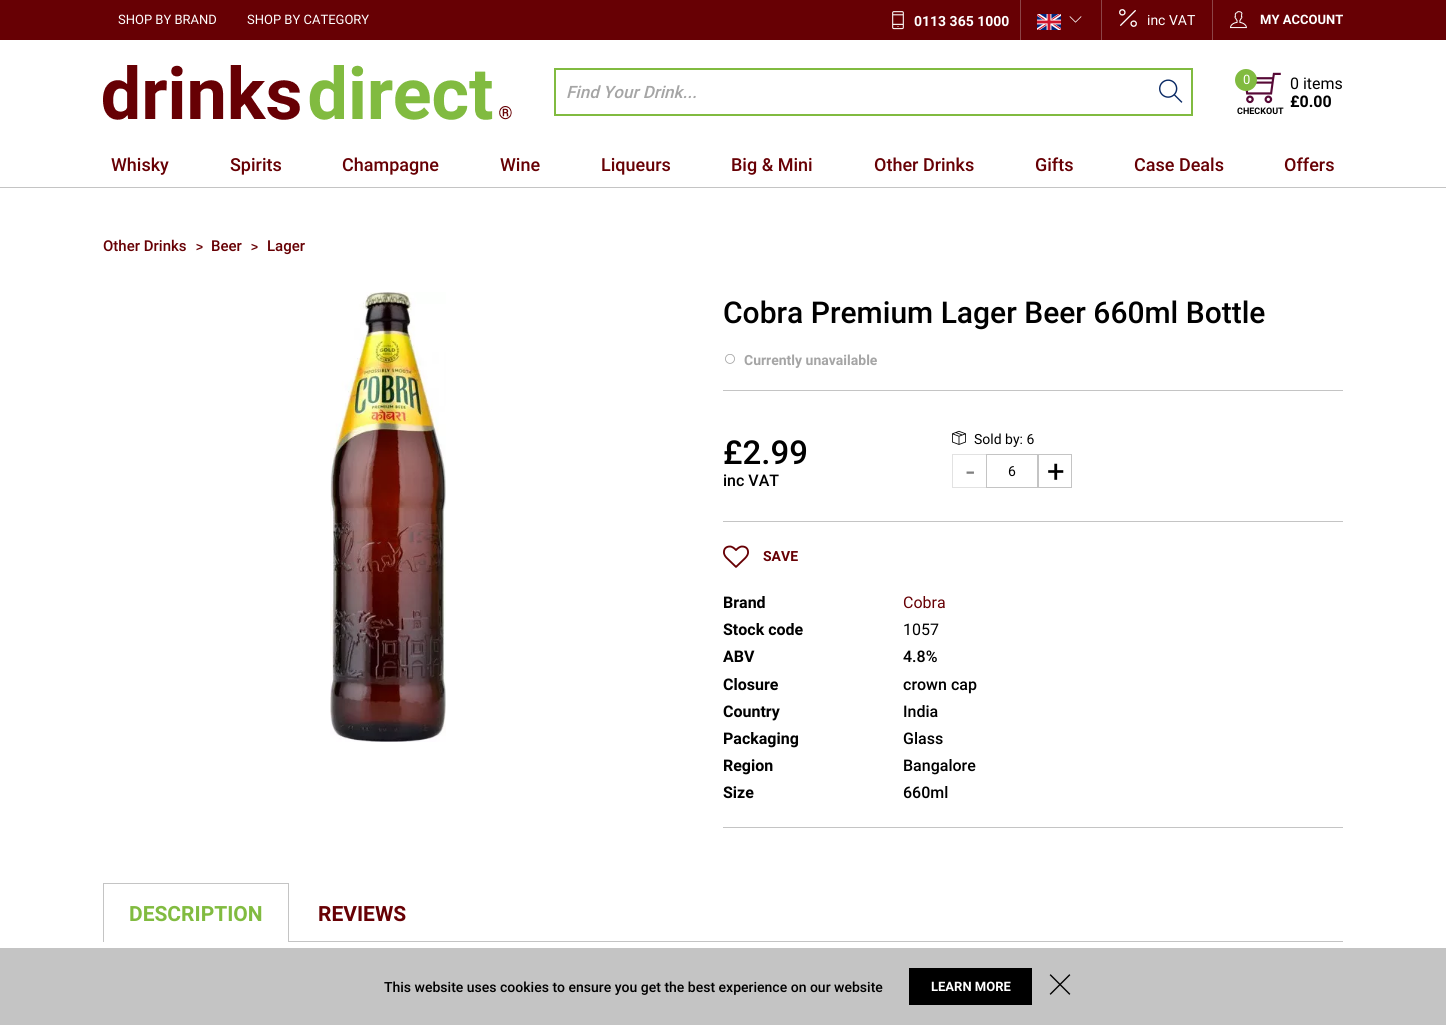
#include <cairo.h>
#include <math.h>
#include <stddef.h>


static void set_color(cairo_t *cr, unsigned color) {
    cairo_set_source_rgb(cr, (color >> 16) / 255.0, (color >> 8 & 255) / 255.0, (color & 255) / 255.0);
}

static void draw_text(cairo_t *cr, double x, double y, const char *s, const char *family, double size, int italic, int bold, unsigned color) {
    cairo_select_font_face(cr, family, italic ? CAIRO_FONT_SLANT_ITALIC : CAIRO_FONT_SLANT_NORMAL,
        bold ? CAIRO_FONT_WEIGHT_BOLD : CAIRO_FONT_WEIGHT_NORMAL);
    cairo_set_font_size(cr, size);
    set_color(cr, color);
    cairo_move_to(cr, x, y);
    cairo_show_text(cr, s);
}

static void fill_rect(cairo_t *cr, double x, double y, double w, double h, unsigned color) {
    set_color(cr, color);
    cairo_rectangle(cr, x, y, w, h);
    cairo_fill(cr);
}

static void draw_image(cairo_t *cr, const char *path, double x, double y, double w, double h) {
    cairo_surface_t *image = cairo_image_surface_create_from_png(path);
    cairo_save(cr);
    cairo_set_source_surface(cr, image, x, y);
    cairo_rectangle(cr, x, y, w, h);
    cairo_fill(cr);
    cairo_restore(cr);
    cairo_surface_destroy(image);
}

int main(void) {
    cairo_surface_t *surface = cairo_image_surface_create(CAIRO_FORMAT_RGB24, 1446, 1025);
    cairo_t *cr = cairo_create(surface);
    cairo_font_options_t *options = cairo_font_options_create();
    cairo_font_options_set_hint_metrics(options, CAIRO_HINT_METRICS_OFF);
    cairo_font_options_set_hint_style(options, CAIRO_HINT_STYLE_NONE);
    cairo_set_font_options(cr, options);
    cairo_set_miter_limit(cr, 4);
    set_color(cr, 0xFFFFFF);
    cairo_paint(cr);
    fill_rect(cr, 0, 0, 1446, 40, 0x670004);
    draw_text(cr, 118, 24, "SHOP BY BRAND", "Roboto", 13, 0, 0, 0xFFFFFF);
    draw_text(cr, 247, 24, "SHOP BY CATEGORY", "Roboto", 13, 0, 0, 0xFFFFFF);
    draw_image(cr, "assets/img1.png", 892, 11, 12, 19);
    draw_text(cr, 914, 26, "0113 365 1000", "Roboto", 14, 0, 1, 0xFFFFFF);
    fill_rect(cr, 1020, 0, 1, 40, 0x8D4447);
    draw_image(cr, "assets/img2.png", 1037, 14, 24, 16);
    draw_image(cr, "assets/img3.png", 1069, 16, 13, 7);
    draw_image(cr, "assets/img4.png", 1119, 9, 18, 18);
    fill_rect(cr, 1101, 0, 1, 40, 0x8D4447);
    draw_text(cr, 1147, 25, "inc VAT", "Roboto", 14, 0, 0, 0xFFFFFF);
    fill_rect(cr, 1212, 0, 1, 40, 0x8D4447);
    draw_image(cr, "assets/img5.png", 1230, 11, 17, 18);
    draw_text(cr, 1260, 24, "MY ACCOUNT", "Roboto", 13, 0, 1, 0xFFFFFF);
    draw_image(cr, "assets/img6.png", 103, 65, 409, 55);
    cairo_rectangle(cr, 555, 69, 637, 46);
    set_color(cr, 0x81BB40);
    cairo_stroke(cr);
    draw_text(cr, 566, 98, "Find Your Drink...", "Roboto Medium", 17, 1, 0, 0xA5A5A5);
    draw_image(cr, "assets/img7.png", 1159, 79, 24, 24);
    draw_image(cr, "assets/img8.png", 1245, 72, 36, 32);
    set_color(cr, 0x81BB40);
    cairo_arc(cr, 1246, 80, 11, 0, 2 * M_PI);
    cairo_fill(cr);
    draw_text(cr, 1243, 84, "0", "Roboto", 13, 0, 0, 0xFFFFFF);
    draw_text(cr, 1290, 89, "0 items", "Roboto", 16, 0, 0, 0x000000);
    draw_text(cr, 1290, 107, "£0.00", "Roboto", 16, 0, 1, 0x000000);
    draw_text(cr, 1237, 114, "CHECKOUT", "Roboto", 9, 0, 1, 0x000000);
    fill_rect(cr, 0, 187, 1446, 1, 0xC4C4C4);
    draw_text(cr, 111, 171, "Whisky", "Roboto Medium", 18, 0, 0, 0x670004);
    draw_text(cr, 230, 171, "Spirits", "Roboto Medium", 18, 0, 0, 0x670004);
    draw_text(cr, 342, 171, "Champagne", "Roboto Medium", 18, 0, 0, 0x670004);
    draw_text(cr, 500, 171, "Wine", "Roboto Medium", 18, 0, 0, 0x670004);
    draw_text(cr, 601, 171, "Liqueurs", "Roboto Medium", 18, 0, 0, 0x670004);
    draw_text(cr, 731, 171, "Big & Mini", "Roboto Medium", 18, 0, 0, 0x670004);
    draw_text(cr, 874, 171, "Other Drinks", "Roboto Medium", 18, 0, 0, 0x670004);
    draw_text(cr, 1035, 171, "Gifts", "Roboto Medium", 18, 0, 0, 0x670004);
    draw_text(cr, 1134, 171, "Case Deals", "Roboto Medium", 18, 0, 0, 0x670004);
    draw_text(cr, 1284, 171, "Offers", "Roboto Medium", 18, 0, 0, 0x670004);
    draw_text(cr, 103, 251, "Other Drinks", "Roboto Medium", 15, 0, 0, 0x670004);
    draw_text(cr, 196, 251, ">", "Liberation Sans", 12, 0, 1, 0x670004);
    draw_text(cr, 211, 251, "Beer", "Roboto Medium", 15, 0, 0, 0x670004);
    draw_text(cr, 251, 251, ">", "Liberation Sans", 12, 0, 1, 0x670004);
    draw_text(cr, 267, 251, "Lager", "Roboto Medium", 15, 0, 0, 0x670004);
    draw_image(cr, "assets/img9.png", 330, 292, 116, 450);
    draw_text(cr, 723, 323, "Cobra Premium Lager Beer 660ml Bottle", "Roboto Medium", 30, 0, 0, 0x000000);
    fill_rect(cr, 723, 390, 620, 1, 0xC4C4C4);
    draw_image(cr, "assets/img10.png", 725, 354, 10, 10);
    draw_text(cr, 744, 365, "Currently unavailable", "Roboto", 14, 0, 1, 0xA5A5A5);
    fill_rect(cr, 723, 521, 620, 1, 0xC4C4C4);
    draw_text(cr, 723, 464, "£2.99", "Roboto Medium", 33, 0, 0, 0x000000);
    draw_text(cr, 723, 486, "inc VAT", "Roboto Medium", 16, 0, 0, 0x000000);
    draw_image(cr, "assets/img11.png", 952, 430, 14, 15);
    draw_text(cr, 974, 444, "Sold by: 6", "Roboto", 14, 0, 0, 0x000000);
    fill_rect(cr, 952, 454, 34, 1, 0xE2E2E2);
    fill_rect(cr, 952, 487, 34, 1, 0xE2E2E2);
    fill_rect(cr, 952, 454, 1, 34, 0xE2E2E2);
    draw_text(cr, 966, 482, "-", "Roboto", 31, 0, 0, 0x808080);
    cairo_rectangle(cr, 986.5, 454.5, 51, 33);
    set_color(cr, 0xC4C4C4);
    cairo_set_line_width(cr, 1);
    cairo_stroke(cr);
    draw_text(cr, 1008, 476, "6", "Roboto", 14, 0, 0, 0x000000);
    cairo_rectangle(cr, 1038.5, 454.5, 33, 33);
    set_color(cr, 0xC4C4C4);
    cairo_stroke(cr);
    draw_text(cr, 1047, 482, "+", "Roboto", 31, 0, 0, 0x000000);
    draw_image(cr, "assets/img12.png", 723, 545, 26, 23);
    draw_text(cr, 763, 561, "SAVE", "Roboto", 14, 0, 1, 0x670004);
    fill_rect(cr, 723, 827, 620, 1, 0xC4C4C4);
    draw_text(cr, 723, 608, "Brand", "Roboto", 16, 0, 1, 0x000000);
    draw_text(cr, 903, 608, "Cobra", "Roboto", 16, 0, 0, 0x670004);
    draw_text(cr, 723, 635, "Stock code", "Roboto", 16, 0, 1, 0x000000);
    draw_text(cr, 903, 635, "1057", "Roboto", 16, 0, 0, 0x000000);
    draw_text(cr, 723, 662, "ABV", "Roboto", 16, 0, 1, 0x000000);
    draw_text(cr, 903, 662, "4.8%", "Roboto Medium", 16, 0, 0, 0x000000);
    draw_text(cr, 723, 690, "Closure", "Roboto", 16, 0, 1, 0x000000);
    draw_text(cr, 903, 690, "crown cap", "Roboto Medium", 16, 0, 0, 0x000000);
    draw_text(cr, 723, 717, "Country", "Roboto", 16, 0, 1, 0x000000);
    draw_text(cr, 903, 717, "India", "Roboto Medium", 16, 0, 0, 0x000000);
    draw_text(cr, 723, 744, "Packaging", "Roboto", 16, 0, 1, 0x000000);
    draw_text(cr, 903, 744, "Glass", "Roboto Medium", 16, 0, 0, 0x000000);
    draw_text(cr, 723, 771, "Region", "Roboto", 16, 0, 1, 0x000000);
    draw_text(cr, 903, 771, "Bangalore", "Roboto Medium", 16, 0, 0, 0x000000);
    draw_text(cr, 723, 798, "Size", "Roboto", 16, 0, 1, 0x000000);
    draw_text(cr, 903, 798, "660ml", "Roboto Medium", 16, 0, 0, 0x000000);
    fill_rect(cr, 289, 941, 1054, 1, 0xC4C4C4);
    draw_text(cr, 129, 921, "DESCRIPTION", "Roboto", 21, 0, 1, 0x81BB40);
    fill_rect(cr, 103, 883, 186, 1, 0xC4C4C4);
    fill_rect(cr, 288, 883, 1, 59, 0xC4C4C4);
    fill_rect(cr, 103, 883, 1, 59, 0xC4C4C4);
    draw_text(cr, 318, 921, "REVIEWS", "Roboto", 21, 0, 1, 0x670004);
    fill_rect(cr, 0, 948, 1446, 77, 0xC4C4C4);
    draw_text(cr, 384, 992, "This website uses cookies to ensure you get the best experience on our website", "Roboto Medium", 14, 0, 0, 0x000000);
    fill_rect(cr, 909, 968, 123, 37, 0x000000);
    draw_text(cr, 931, 991, "LEARN MORE", "Roboto", 13, 0, 1, 0xFFFFFF);
    draw_image(cr, "assets/img13.png", 1049, 974, 22, 21);
    cairo_surface_write_to_png(surface, "output.png");
    cairo_font_options_destroy(options);
    cairo_destroy(cr);
    cairo_surface_destroy(surface);
    return 0;
}
